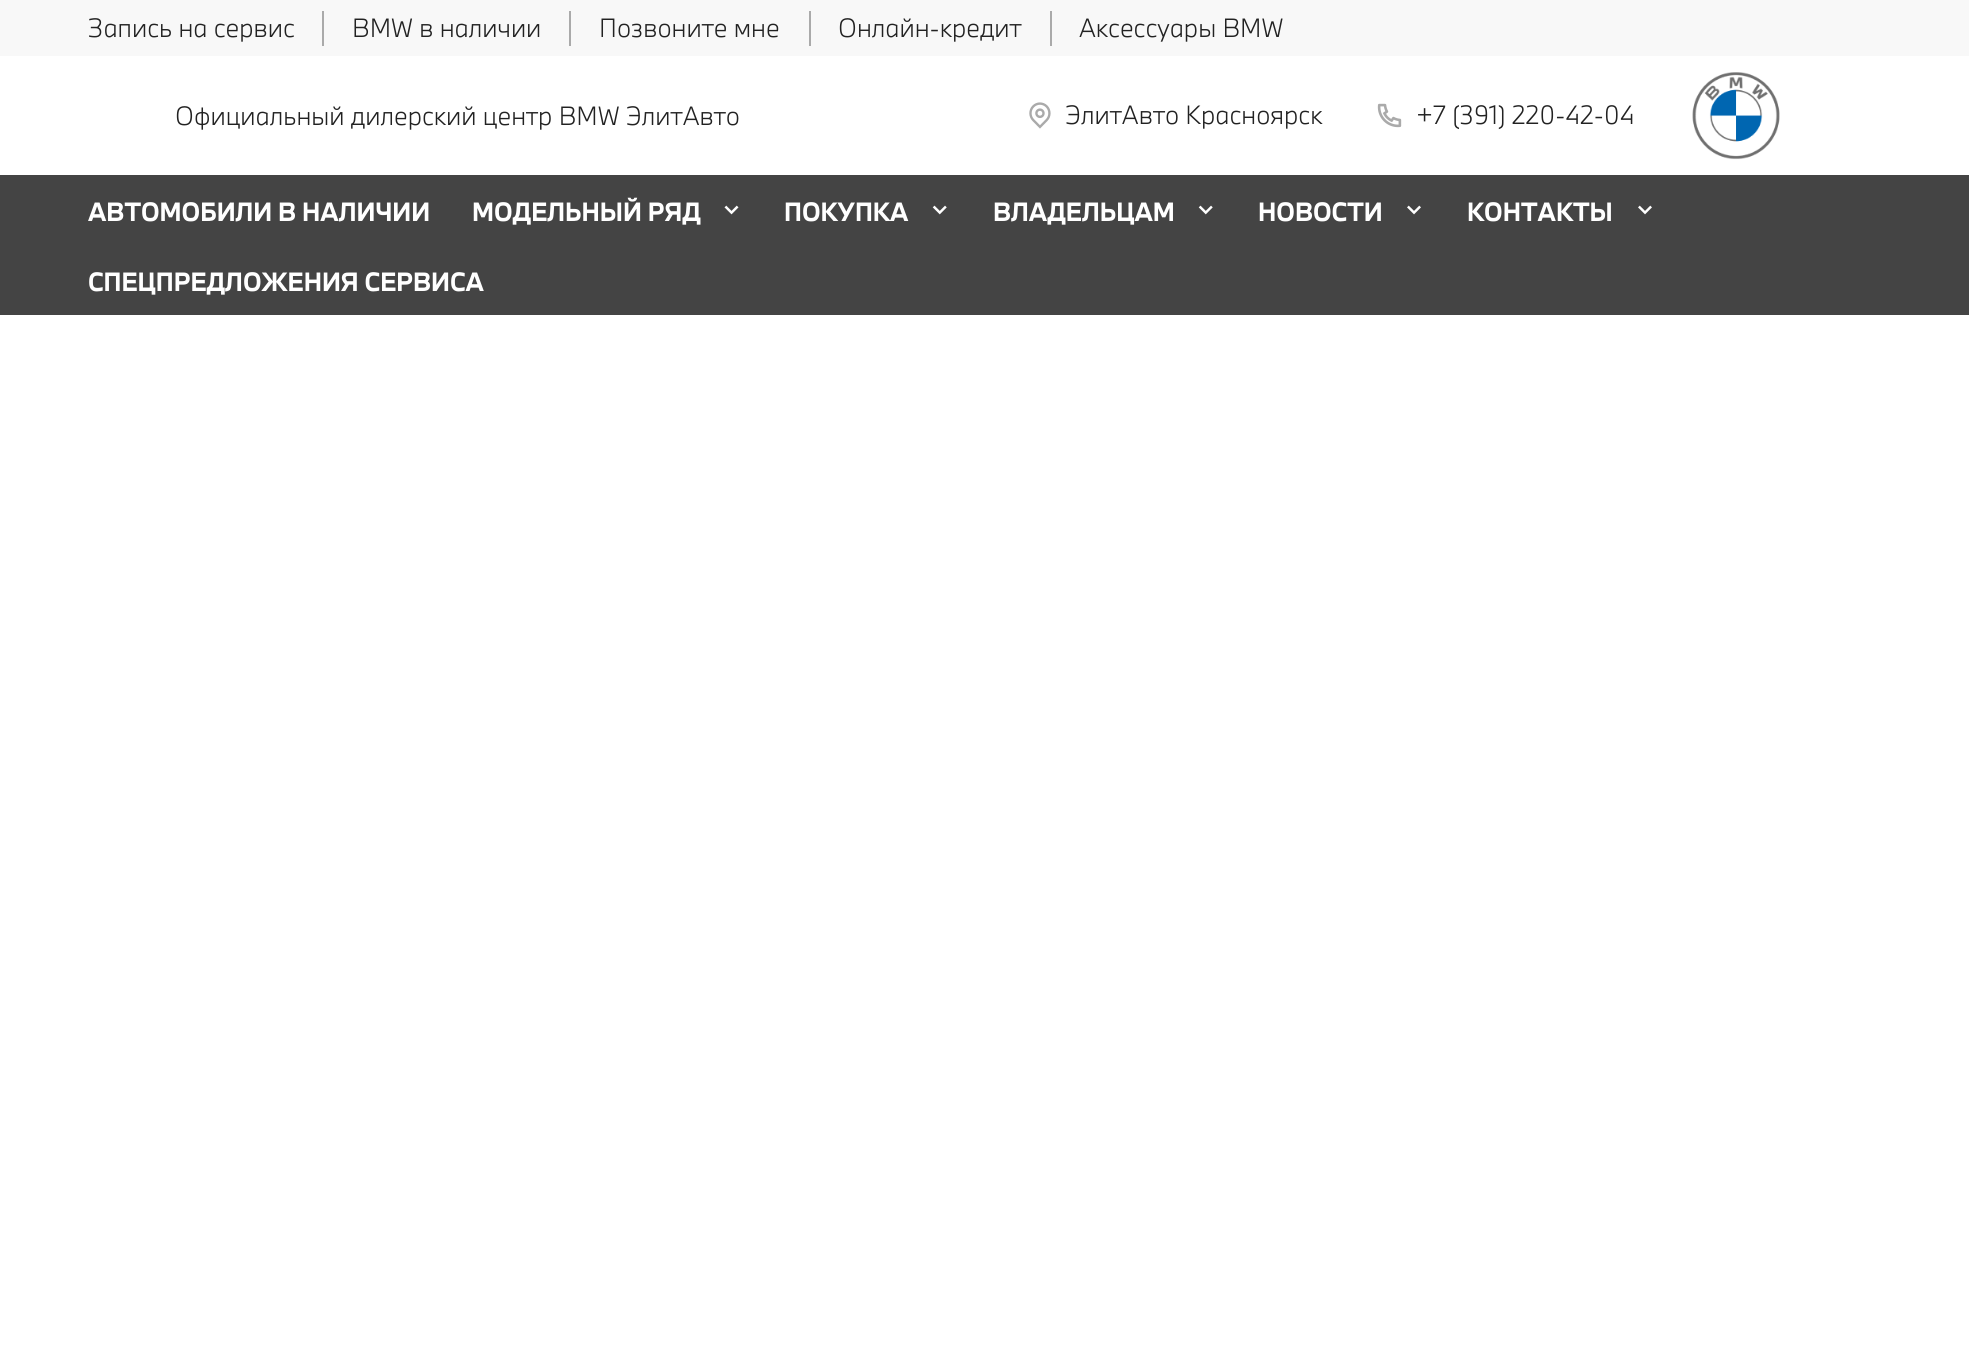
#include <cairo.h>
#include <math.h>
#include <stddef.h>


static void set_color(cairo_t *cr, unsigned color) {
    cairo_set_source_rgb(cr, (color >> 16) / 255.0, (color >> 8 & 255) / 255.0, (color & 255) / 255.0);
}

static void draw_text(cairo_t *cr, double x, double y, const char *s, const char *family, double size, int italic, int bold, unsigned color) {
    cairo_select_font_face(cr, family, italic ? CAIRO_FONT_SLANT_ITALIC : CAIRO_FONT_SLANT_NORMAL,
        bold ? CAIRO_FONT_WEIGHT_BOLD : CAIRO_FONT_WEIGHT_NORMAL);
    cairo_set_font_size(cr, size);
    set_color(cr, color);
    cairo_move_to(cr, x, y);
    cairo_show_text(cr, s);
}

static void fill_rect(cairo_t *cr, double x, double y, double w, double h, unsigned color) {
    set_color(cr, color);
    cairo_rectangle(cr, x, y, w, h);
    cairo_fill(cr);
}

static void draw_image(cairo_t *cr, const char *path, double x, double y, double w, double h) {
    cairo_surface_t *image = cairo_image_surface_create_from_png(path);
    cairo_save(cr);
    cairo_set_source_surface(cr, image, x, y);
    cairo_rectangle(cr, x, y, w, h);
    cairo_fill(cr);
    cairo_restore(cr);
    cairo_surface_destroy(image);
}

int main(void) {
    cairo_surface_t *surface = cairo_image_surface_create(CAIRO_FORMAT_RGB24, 1969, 1346);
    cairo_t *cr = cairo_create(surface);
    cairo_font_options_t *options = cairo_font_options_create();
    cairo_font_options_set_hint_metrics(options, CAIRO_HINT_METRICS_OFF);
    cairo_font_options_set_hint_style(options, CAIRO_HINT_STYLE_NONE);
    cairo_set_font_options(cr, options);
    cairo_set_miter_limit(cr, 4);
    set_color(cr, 0xFFFFFF);
    cairo_paint(cr);
    fill_rect(cr, 0, 0, 1969, 56, 0xF8F8F8);
    fill_rect(cr, 322, 11, 2, 35, 0xAAAAAA);
    draw_text(cr, 88, 37, "Запись на сервис", "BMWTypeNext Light", 24.5, 0, 0, 0x222222);
    fill_rect(cr, 569, 11, 2, 35, 0xAAAAAA);
    draw_text(cr, 352, 37, "BMW в наличии", "BMWTypeNext Light", 24.5, 0, 0, 0x222222);
    fill_rect(cr, 809, 11, 2, 35, 0xAAAAAA);
    draw_text(cr, 599, 37, "Позвоните мне", "BMWTypeNext Light", 24.5, 0, 0, 0x222222);
    fill_rect(cr, 1050, 11, 2, 35, 0xAAAAAA);
    draw_text(cr, 838, 37, "Онлайн-кредит", "BMWTypeNext Light", 24.5, 0, 0, 0x222222);
    draw_text(cr, 1079, 37, "Аксессуары BMW", "BMWTypeNext Light", 24.5, 0, 0, 0x222222);
    draw_text(cr, 175, 125, "Официальный дилерский центр BMW ЭлитАвто", "BMWTypeNext Light", 24.5, 0, 0, 0x222222);
    draw_image(cr, "assets/img1.png", 1029, 102, 22, 27);
    draw_text(cr, 1065, 124, "ЭлитАвто Красноярск", "BMWTypeNext Light", 24.5, 0, 0, 0x222222);
    draw_image(cr, "assets/img2.png", 1377, 103, 25, 25);
    draw_text(cr, 1416, 124, "+7 (391) 220-42-04", "BMWTypeNext Light", 24.5, 0, 0, 0x222222);
    draw_image(cr, "assets/img3.png", 1692, 72, 88, 88);
    fill_rect(cr, 0, 175, 1969, 140, 0x444444);
    draw_text(cr, 88, 221, "АВТОМОБИЛИ В НАЛИЧИИ", "BMWTypeNext", 24.5, 0, 1, 0xFFFFFF);
    draw_text(cr, 472, 221, "МОДЕЛЬНЫЙ РЯД", "BMWTypeNext", 24.5, 0, 1, 0xFFFFFF);
    draw_image(cr, "assets/img4.png", 724, 205, 15, 10);
    draw_text(cr, 784, 221, "ПОКУПКА", "BMWTypeNext", 24.5, 0, 1, 0xFFFFFF);
    draw_image(cr, "assets/img5.png", 932, 205, 15, 10);
    draw_text(cr, 993, 221, "ВЛАДЕЛЬЦАМ", "BMWTypeNext", 24.5, 0, 1, 0xFFFFFF);
    draw_image(cr, "assets/img5.png", 1198, 205, 15, 10);
    draw_text(cr, 1258, 221, "НОВОСТИ", "BMWTypeNext", 24.5, 0, 1, 0xFFFFFF);
    draw_image(cr, "assets/img6.png", 1407, 205, 14, 10);
    draw_text(cr, 1467, 221, "КОНТАКТЫ", "BMWTypeNext", 24.5, 0, 1, 0xFFFFFF);
    draw_image(cr, "assets/img6.png", 1638, 205, 14, 10);
    draw_text(cr, 88, 291, "СПЕЦПРЕДЛОЖЕНИЯ СЕРВИСА", "BMWTypeNext", 24.5, 0, 1, 0xFFFFFF);
    cairo_surface_write_to_png(surface, "output.png");
    cairo_font_options_destroy(options);
    cairo_destroy(cr);
    cairo_surface_destroy(surface);
    return 0;
}
